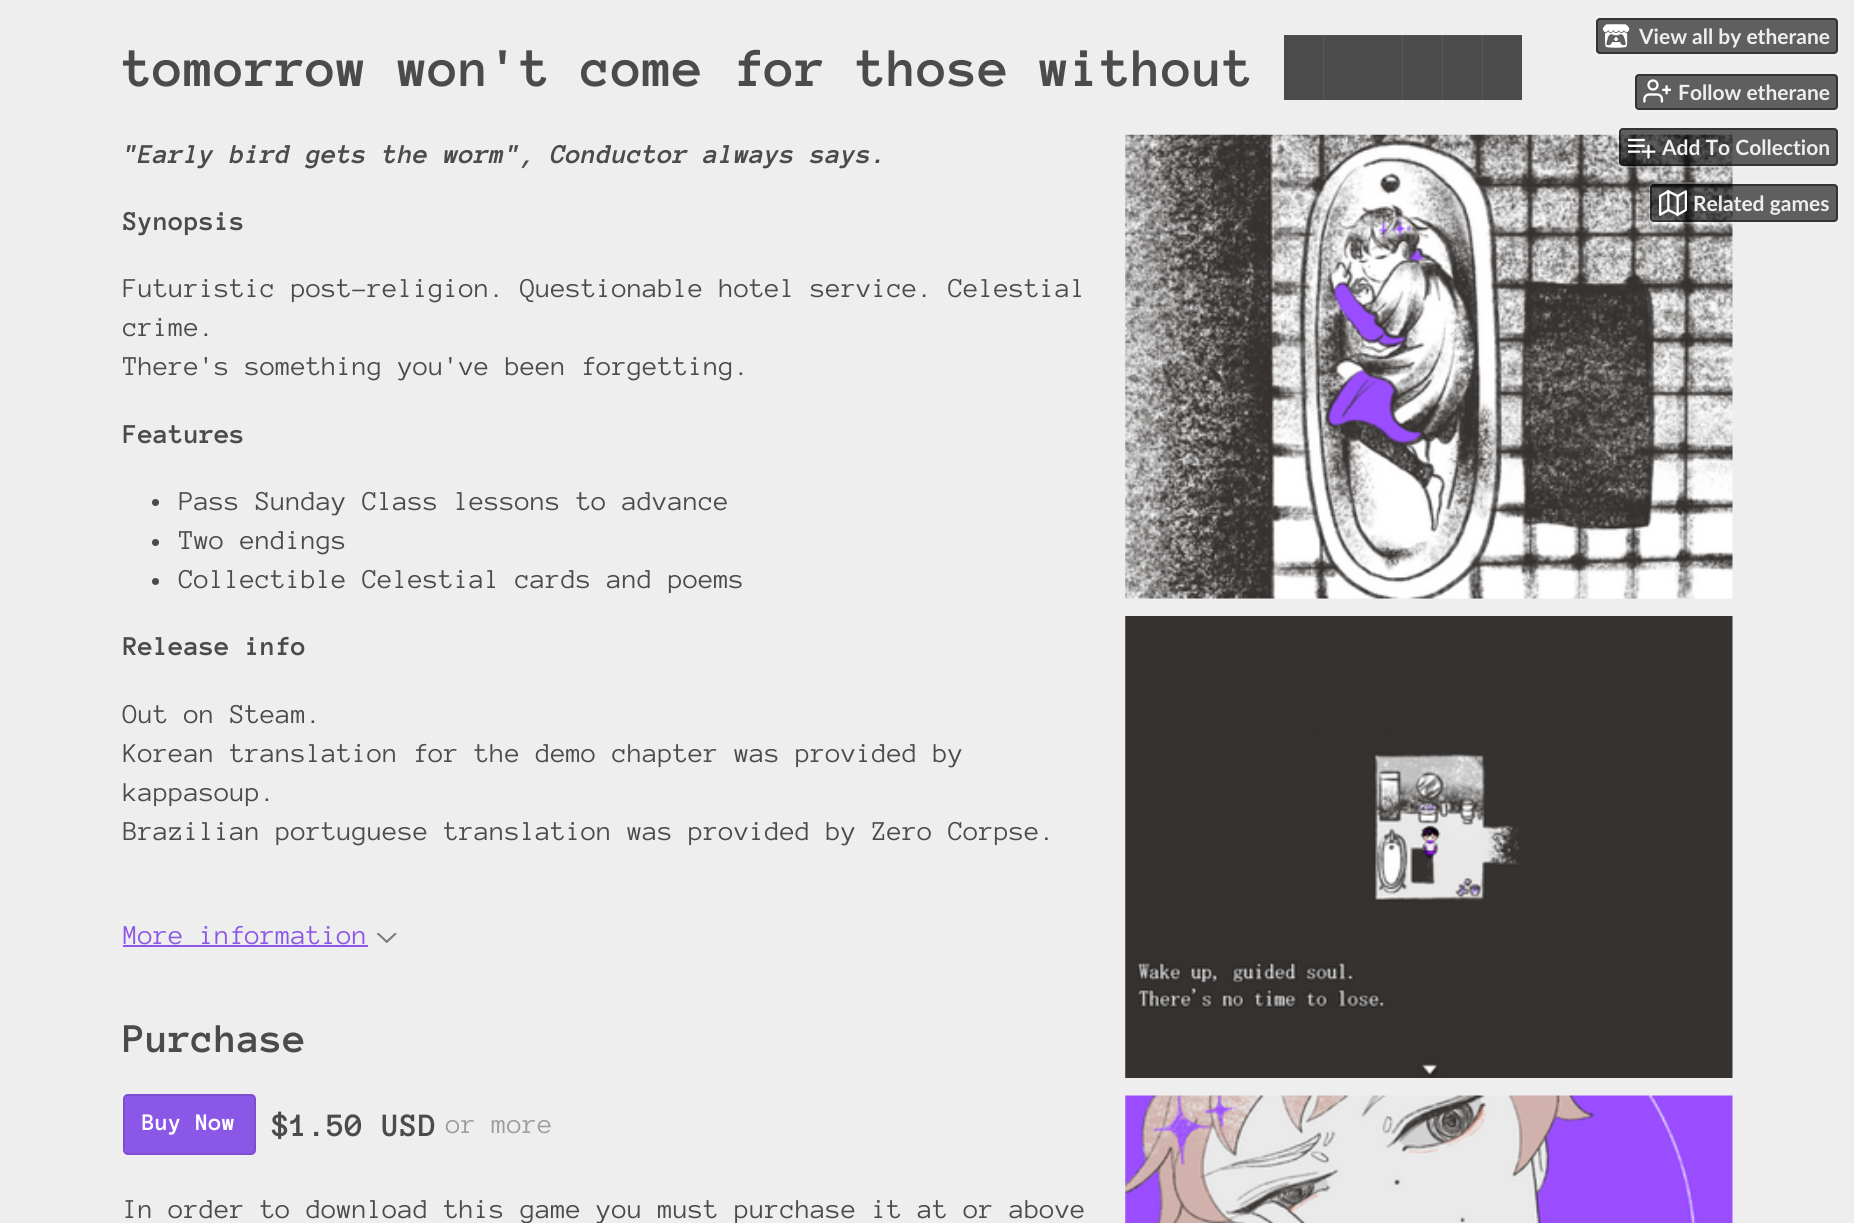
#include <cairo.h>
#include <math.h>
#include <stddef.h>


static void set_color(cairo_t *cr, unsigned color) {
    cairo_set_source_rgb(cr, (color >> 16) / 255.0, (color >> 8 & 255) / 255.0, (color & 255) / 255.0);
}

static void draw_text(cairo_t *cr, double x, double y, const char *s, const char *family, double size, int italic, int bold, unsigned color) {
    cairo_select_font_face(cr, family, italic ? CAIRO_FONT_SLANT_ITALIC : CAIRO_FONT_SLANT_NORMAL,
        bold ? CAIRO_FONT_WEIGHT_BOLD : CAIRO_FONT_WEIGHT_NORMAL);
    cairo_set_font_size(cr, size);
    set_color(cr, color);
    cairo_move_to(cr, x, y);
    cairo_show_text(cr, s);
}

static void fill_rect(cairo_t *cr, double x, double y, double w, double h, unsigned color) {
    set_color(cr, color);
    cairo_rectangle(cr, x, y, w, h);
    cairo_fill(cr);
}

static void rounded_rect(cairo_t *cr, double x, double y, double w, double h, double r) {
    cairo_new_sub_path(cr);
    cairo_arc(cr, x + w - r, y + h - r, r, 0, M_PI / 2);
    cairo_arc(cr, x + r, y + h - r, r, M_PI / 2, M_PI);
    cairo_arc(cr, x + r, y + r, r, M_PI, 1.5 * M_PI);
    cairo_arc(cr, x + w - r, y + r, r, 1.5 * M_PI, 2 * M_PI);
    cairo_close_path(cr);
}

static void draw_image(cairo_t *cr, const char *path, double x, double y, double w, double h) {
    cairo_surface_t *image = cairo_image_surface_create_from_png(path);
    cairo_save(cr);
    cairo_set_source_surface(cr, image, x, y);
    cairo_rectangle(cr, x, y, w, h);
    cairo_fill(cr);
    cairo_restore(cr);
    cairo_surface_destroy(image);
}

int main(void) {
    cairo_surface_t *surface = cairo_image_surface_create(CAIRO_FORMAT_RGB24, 1854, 1223);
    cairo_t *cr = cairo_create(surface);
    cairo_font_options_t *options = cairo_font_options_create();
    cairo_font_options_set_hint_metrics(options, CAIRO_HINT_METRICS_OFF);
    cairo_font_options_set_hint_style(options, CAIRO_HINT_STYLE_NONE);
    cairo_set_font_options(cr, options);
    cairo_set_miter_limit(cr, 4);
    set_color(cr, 0xEEEEEE);
    cairo_paint(cr);
    draw_text(cr, 123, 86, "tomorrow won't come for those without", "Anonymous Pro", 56, 0, 1, 0x4B4B4B);
    cairo_save(cr);
    cairo_rectangle(cr, 88, 0, 1680, 100);
    cairo_clip(cr);
    draw_text(cr, 1284, 86, "██████", "Liberation Serif", 56, 0, 1, 0x4B4B4B);
    cairo_restore(cr);
    draw_text(cr, 123, 163, "\"Early bird gets the worm\", Conductor always says.", "Anonymous Pro", 28, 1, 1, 0x4B4B4B);
    draw_text(cr, 123, 230, "Synopsis", "Anonymous Pro", 28, 0, 1, 0x4B4B4B);
    draw_text(cr, 123, 297, "Futuristic post-religion. Questionable hotel service. Celestial", "Anonymous Pro", 28, 0, 0, 0x4B4B4B);
    draw_text(cr, 123, 336, "crime.", "Anonymous Pro", 28, 0, 0, 0x4B4B4B);
    draw_text(cr, 123, 375, "There's something you've been forgetting.", "Anonymous Pro", 28, 0, 0, 0x4B4B4B);
    draw_text(cr, 123, 443, "Features", "Anonymous Pro", 28, 0, 1, 0x4B4B4B);
    cairo_new_path(cr);
    cairo_arc(cr, 155.5, 502.5, 3.5, 0, 2 * M_PI);
    cairo_fill(cr);
    draw_text(cr, 179, 510, "Pass Sunday Class lessons to advance", "Anonymous Pro", 28, 0, 0, 0x4B4B4B);
    cairo_new_path(cr);
    cairo_arc(cr, 155.5, 542.5, 3.5, 0, 2 * M_PI);
    cairo_fill(cr);
    draw_text(cr, 179, 549, "Two endings", "Anonymous Pro", 28, 0, 0, 0x4B4B4B);
    cairo_new_path(cr);
    cairo_arc(cr, 155.5, 581.5, 3.5, 0, 2 * M_PI);
    cairo_fill(cr);
    draw_text(cr, 179, 588, "Collectible Celestial cards and poems", "Anonymous Pro", 28, 0, 0, 0x4B4B4B);
    draw_text(cr, 123, 655, "Release info", "Anonymous Pro", 28, 0, 1, 0x4B4B4B);
    draw_text(cr, 123, 723, "Out on Steam.", "Anonymous Pro", 28, 0, 0, 0x4B4B4B);
    draw_text(cr, 123, 762, "Korean translation for the demo chapter was provided by", "Anonymous Pro", 28, 0, 0, 0x4B4B4B);
    draw_text(cr, 123, 801, "kappasoup.", "Anonymous Pro", 28, 0, 0, 0x4B4B4B);
    draw_text(cr, 123, 840, "Brazilian portuguese translation was provided by Zero Corpse.", "Anonymous Pro", 28, 0, 0, 0x4B4B4B);
    draw_text(cr, 123, 944, "More information", "Anonymous Pro", 28, 0, 0, 0x8B57E6);
    fill_rect(cr, 123, 945, 245, 2, 0x8B57E6);
    draw_image(cr, "assets/img1.png", 377, 933, 20, 10);
    draw_text(cr, 123, 1052, "Purchase", "Anonymous Pro", 42, 0, 1, 0x4B4B4B);
    set_color(cr, 0x8B57E6);
    rounded_rect(cr, 123, 1094, 133, 61, 5);
    cairo_fill(cr);
    rounded_rect(cr, 124, 1095, 131, 59, 4);
    cairo_set_source_rgba(cr, 0, 0, 0, 0.1);
    cairo_stroke(cr);
    draw_text(cr, 142, 1130, "Buy Now", "Anonymous Pro", 24.5, 0, 1, 0xFFFFFF);
    draw_text(cr, 272, 1136, "$1.50 USD", "Anonymous Pro", 33.5, 0, 1, 0x4B4B4B);
    draw_text(cr, 446, 1133, "or more", "Anonymous Pro", 28, 0, 0, 0x9D9D9D);
    draw_text(cr, 123, 1218, "In order to download this game you must purchase it at or above", "Anonymous Pro", 28, 0, 0, 0x4B4B4B);
    draw_image(cr, "assets/img2.png", 1125, 134, 608, 465);
    draw_image(cr, "assets/img3.png", 1125, 616, 608, 462);
    draw_image(cr, "assets/img4.png", 1125, 1095, 608, 128);
    rounded_rect(cr, 1595, 17, 243, 38, 4);
    set_color(cr, 0xF1F1F1);
    cairo_stroke(cr);
    cairo_set_source_rgba(cr, 0, 0, 0, 0.6);
    rounded_rect(cr, 1596, 18, 242, 36, 4);
    cairo_fill(cr);
    rounded_rect(cr, 1597, 19, 240, 34, 3);
    cairo_set_source_rgba(cr, 0.039, 0.039, 0.039, 0.5);
    cairo_stroke(cr);
    draw_image(cr, "assets/img5.png", 1603, 24, 27, 24);
    draw_text(cr, 1639, 44, "View all by etherane", "Lato", 21, 0, 1, 0xEEEEEE);
    rounded_rect(cr, 1634, 73, 204, 38, 4);
    set_color(cr, 0xF1F1F1);
    cairo_stroke(cr);
    cairo_set_source_rgba(cr, 0, 0, 0, 0.6);
    rounded_rect(cr, 1635, 74, 203, 36, 4);
    cairo_fill(cr);
    rounded_rect(cr, 1636, 75, 201, 34, 3);
    cairo_set_source_rgba(cr, 0.039, 0.039, 0.039, 0.5);
    cairo_stroke(cr);
    draw_image(cr, "assets/img6.png", 1643, 79, 28, 24);
    draw_text(cr, 1678, 100, "Follow etherane", "Lato", 21, 0, 1, 0xEEEEEE);
    rounded_rect(cr, 1618, 127, 220, 40, 4);
    cairo_set_source_rgba(cr, 1, 1, 1, 0.2);
    cairo_stroke(cr);
    cairo_set_source_rgba(cr, 0, 0, 0, 0.6);
    rounded_rect(cr, 1619, 128, 219, 38, 4);
    cairo_fill(cr);
    rounded_rect(cr, 1620, 129, 217, 36, 3);
    cairo_set_source_rgba(cr, 0.039, 0.039, 0.039, 0.5);
    cairo_stroke(cr);
    draw_image(cr, "assets/img7.png", 1628, 138, 28, 21);
    draw_text(cr, 1662, 155, "Add To Collection", "Lato", 21, 0, 1, 0xEEEEEE);
    rounded_rect(cr, 1650, 183, 188, 40, 4);
    cairo_set_source_rgba(cr, 1, 1, 1, 0.2);
    cairo_stroke(cr);
    cairo_set_source_rgba(cr, 0, 0, 0, 0.6);
    rounded_rect(cr, 1650, 184, 188, 38, 4);
    cairo_fill(cr);
    rounded_rect(cr, 1651, 185, 186, 36, 3);
    cairo_set_source_rgba(cr, 0.039, 0.039, 0.039, 0.5);
    cairo_stroke(cr);
    draw_image(cr, "assets/img8.png", 1659, 190, 28, 26);
    draw_text(cr, 1693, 211, "Related games", "Lato", 21, 0, 1, 0xEEEEEE);
    cairo_surface_write_to_png(surface, "output.png");
    cairo_font_options_destroy(options);
    cairo_destroy(cr);
    cairo_surface_destroy(surface);
    return 0;
}
